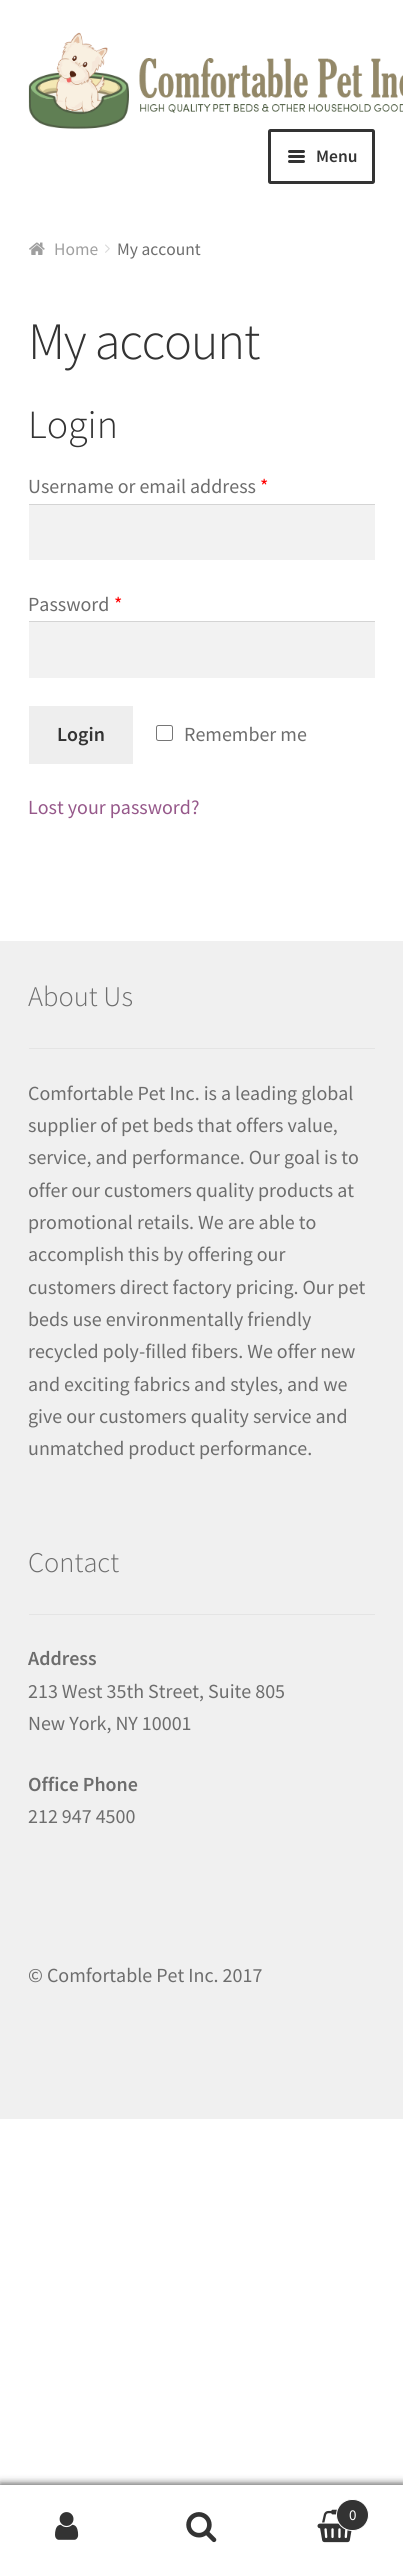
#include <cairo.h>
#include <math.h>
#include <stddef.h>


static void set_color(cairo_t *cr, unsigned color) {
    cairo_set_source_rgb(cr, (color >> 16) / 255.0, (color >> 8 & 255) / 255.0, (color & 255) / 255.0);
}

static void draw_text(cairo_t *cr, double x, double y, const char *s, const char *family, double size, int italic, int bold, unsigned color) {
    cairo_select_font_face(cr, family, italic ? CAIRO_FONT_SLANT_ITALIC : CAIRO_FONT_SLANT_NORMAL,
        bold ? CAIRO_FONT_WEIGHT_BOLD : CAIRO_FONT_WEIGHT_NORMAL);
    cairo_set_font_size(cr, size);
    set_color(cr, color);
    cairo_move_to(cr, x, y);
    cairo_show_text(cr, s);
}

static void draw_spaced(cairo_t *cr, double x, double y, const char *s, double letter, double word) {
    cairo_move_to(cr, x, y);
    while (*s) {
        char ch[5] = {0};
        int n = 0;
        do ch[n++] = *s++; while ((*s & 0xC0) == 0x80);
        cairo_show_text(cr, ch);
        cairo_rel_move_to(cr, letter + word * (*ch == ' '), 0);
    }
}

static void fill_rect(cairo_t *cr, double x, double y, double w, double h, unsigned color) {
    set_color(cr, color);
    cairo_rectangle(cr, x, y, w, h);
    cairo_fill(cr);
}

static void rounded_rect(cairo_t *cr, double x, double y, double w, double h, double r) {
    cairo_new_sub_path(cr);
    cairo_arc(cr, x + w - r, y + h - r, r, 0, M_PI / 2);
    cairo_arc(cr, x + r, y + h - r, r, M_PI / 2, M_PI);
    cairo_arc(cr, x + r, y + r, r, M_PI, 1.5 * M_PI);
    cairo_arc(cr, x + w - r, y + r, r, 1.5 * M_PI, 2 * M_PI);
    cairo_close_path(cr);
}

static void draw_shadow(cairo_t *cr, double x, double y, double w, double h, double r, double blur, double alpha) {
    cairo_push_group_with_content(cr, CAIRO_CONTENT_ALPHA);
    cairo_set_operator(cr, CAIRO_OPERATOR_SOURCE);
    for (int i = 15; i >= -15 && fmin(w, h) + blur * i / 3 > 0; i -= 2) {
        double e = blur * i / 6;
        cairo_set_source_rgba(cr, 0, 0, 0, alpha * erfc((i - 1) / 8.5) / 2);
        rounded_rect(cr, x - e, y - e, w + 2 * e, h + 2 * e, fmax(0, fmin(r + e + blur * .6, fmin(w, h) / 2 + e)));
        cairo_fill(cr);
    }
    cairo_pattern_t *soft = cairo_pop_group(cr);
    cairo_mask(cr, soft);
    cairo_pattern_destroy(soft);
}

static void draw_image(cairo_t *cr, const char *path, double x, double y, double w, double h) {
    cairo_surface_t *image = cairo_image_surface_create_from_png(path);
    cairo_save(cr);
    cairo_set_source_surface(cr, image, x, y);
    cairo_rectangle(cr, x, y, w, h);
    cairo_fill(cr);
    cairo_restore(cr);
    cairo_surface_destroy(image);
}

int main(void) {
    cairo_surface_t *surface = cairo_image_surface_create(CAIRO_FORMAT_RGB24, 403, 2569);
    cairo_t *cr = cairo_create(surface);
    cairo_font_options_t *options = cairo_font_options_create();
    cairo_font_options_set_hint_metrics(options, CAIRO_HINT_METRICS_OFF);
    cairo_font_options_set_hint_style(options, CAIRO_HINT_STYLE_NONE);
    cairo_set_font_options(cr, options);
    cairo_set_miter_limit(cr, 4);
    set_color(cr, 0xFFFFFF);
    cairo_paint(cr);
    draw_image(cr, "assets/img1.png", 28, 32, 375, 97);
    rounded_rect(cr, 269.5, 130.5, 104, 52, 1);
    set_color(cr, 0x333333);
    cairo_set_line_width(cr, 3);
    cairo_stroke(cr);
    rounded_rect(cr, 288, 150, 17, 3, 1.5);
    cairo_fill(cr);
    rounded_rect(cr, 288, 155, 17, 3, 1.5);
    cairo_fill(cr);
    draw_text(cr, 316, 162, "Menu", "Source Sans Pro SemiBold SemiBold", 17.5, 0, 0, 0x333333);
    rounded_rect(cr, 288, 160, 17, 3, 1.5);
    cairo_fill(cr);
    draw_image(cr, "assets/img2.png", 29, 242, 16, 13);
    draw_text(cr, 54, 255, "Home", "Source Sans Pro", 17.5, 0, 0, 0x9F9F9F);
    draw_image(cr, "assets/img3.png", 105, 244, 5, 9);
    draw_text(cr, 117, 255, "My account", "Source Sans Pro", 17.5, 0, 0, 0x6D6D6D);
    cairo_select_font_face(cr, "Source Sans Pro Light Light", CAIRO_FONT_SLANT_NORMAL, CAIRO_FONT_WEIGHT_NORMAL);
    cairo_set_font_size(cr, 52.5);
    set_color(cr, 0x333333);
    draw_spaced(cr, 28, 359, "My account", -1.25, 0);
    draw_text(cr, 28, 438, "Login", "Source Sans Pro Light Light", 40, 0, 0, 0x333333);
    draw_text(cr, 28, 493, "Username or email address", "Source Sans Pro", 20, 0, 0, 0x6D6D6D);
    draw_text(cr, 260, 493, "*", "Source Sans Pro", 20, 0, 0, 0xFF0000);
    fill_rect(cr, 29, 505, 346, 55, 0xF2F2F2);
    fill_rect(cr, 29, 504, 346, 1, 0xD4D4D4);
    draw_text(cr, 28, 611, "Password", "Source Sans Pro", 20, 0, 0, 0x6D6D6D);
    draw_text(cr, 114, 611, "*", "Source Sans Pro", 20, 0, 0, 0xFF0000);
    fill_rect(cr, 29, 622, 346, 56, 0xF2F2F2);
    fill_rect(cr, 29, 621, 346, 1, 0xD4D4D4);
    fill_rect(cr, 29, 706, 104, 58, 0xEEEEEE);
    draw_text(cr, 57, 741, "Login", "Source Sans Pro SemiBold SemiBold", 20, 0, 0, 0x333333);
    rounded_rect(cr, 156.5, 725.5, 16, 15, 2);
    set_color(cr, 0x767676);
    cairo_set_line_width(cr, 1);
    cairo_stroke(cr);
    draw_text(cr, 184, 741, "Remember me", "Source Sans Pro", 20, 0, 0, 0x6D6D6D);
    draw_text(cr, 28, 814, "Lost your password?", "Source Sans Pro", 20, 0, 0, 0x96588A);
    fill_rect(cr, 0, 941, 403, 1178, 0xF0F0F0);
    fill_rect(cr, 29, 1048, 346, 1, 0xE4E4E4);
    draw_text(cr, 28, 1006, "About Us", "Source Sans Pro Light Light", 28.5, 0, 0, 0x6D6D6D);
    draw_text(cr, 28, 1100, "Comfortable Pet Inc. is a leading global", "Source Sans Pro", 20, 0, 0, 0x6D6D6D);
    draw_text(cr, 28, 1132, "supplier of pet beds that offers value,", "Source Sans Pro", 20, 0, 0, 0x6D6D6D);
    draw_text(cr, 28, 1164, "service, and performance. Our goal is to", "Source Sans Pro", 20, 0, 0, 0x6D6D6D);
    draw_text(cr, 28, 1197, "offer our customers quality products at", "Source Sans Pro", 20, 0, 0, 0x6D6D6D);
    draw_text(cr, 28, 1229, "promotional retails. We are able to", "Source Sans Pro", 20, 0, 0, 0x6D6D6D);
    draw_text(cr, 28, 1261, "accomplish this by offering our", "Source Sans Pro", 20, 0, 0, 0x6D6D6D);
    draw_text(cr, 28, 1294, "customers direct factory pricing. Our pet", "Source Sans Pro", 20, 0, 0, 0x6D6D6D);
    draw_text(cr, 28, 1326, "beds use environmentally friendly", "Source Sans Pro", 20, 0, 0, 0x6D6D6D);
    draw_text(cr, 28, 1358, "recycled poly-filled fibers. We offer new", "Source Sans Pro", 20, 0, 0, 0x6D6D6D);
    draw_text(cr, 28, 1391, "and exciting fabrics and styles, and we", "Source Sans Pro", 20, 0, 0, 0x6D6D6D);
    draw_text(cr, 28, 1423, "give our customers quality service and", "Source Sans Pro", 20, 0, 0, 0x6D6D6D);
    draw_text(cr, 28, 1455, "unmatched product performance.", "Source Sans Pro", 20, 0, 0, 0x6D6D6D);
    fill_rect(cr, 29, 1614, 346, 1, 0xE4E4E4);
    draw_text(cr, 28, 1572, "Contact", "Source Sans Pro Light Light", 28.5, 0, 0, 0x6D6D6D);
    draw_text(cr, 28, 1665, "Address", "Source Sans Pro SemiBold SemiBold", 20, 0, 0, 0x6D6D6D);
    draw_text(cr, 28, 1698, "213 West 35th Street, Suite 805", "Source Sans Pro", 20, 0, 0, 0x6D6D6D);
    draw_text(cr, 28, 1730, "New York, NY 10001", "Source Sans Pro", 20, 0, 0, 0x6D6D6D);
    draw_text(cr, 28, 1791, "Office Phone", "Source Sans Pro SemiBold SemiBold", 20, 0, 0, 0x6D6D6D);
    draw_text(cr, 28, 1823, "212 947 4500", "Source Sans Pro", 20, 0, 0, 0x6D6D6D);
    draw_text(cr, 28, 1982, "© Comfortable Pet Inc. 2017", "Source Sans Pro", 20, 0, 0, 0x6D6D6D);
    set_color(cr, 0x000000);
    draw_shadow(cr, 0, 2484, 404, 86, 0, 4, 0.7);
    fill_rect(cr, 0, 2485, 403, 84, 0xFFFFFF);
    draw_image(cr, "assets/img4.png", 55, 2512, 24, 28);
    draw_image(cr, "assets/img5.png", 186, 2512, 31, 31);
    draw_image(cr, "assets/img6.png", 317, 2509, 35, 34);
    set_color(cr, 0x333333);
    rounded_rect(cr, 336.5, 2499.5, 32, 31, 15.5);
    cairo_fill_preserve(cr);
    set_color(cr, 0xFFFFFF);
    cairo_stroke(cr);
    draw_text(cr, 349, 2520, "0", "Source Sans Pro", 15, 0, 0, 0xFFFFFF);
    cairo_surface_write_to_png(surface, "output.png");
    cairo_font_options_destroy(options);
    cairo_destroy(cr);
    cairo_surface_destroy(surface);
    return 0;
}
